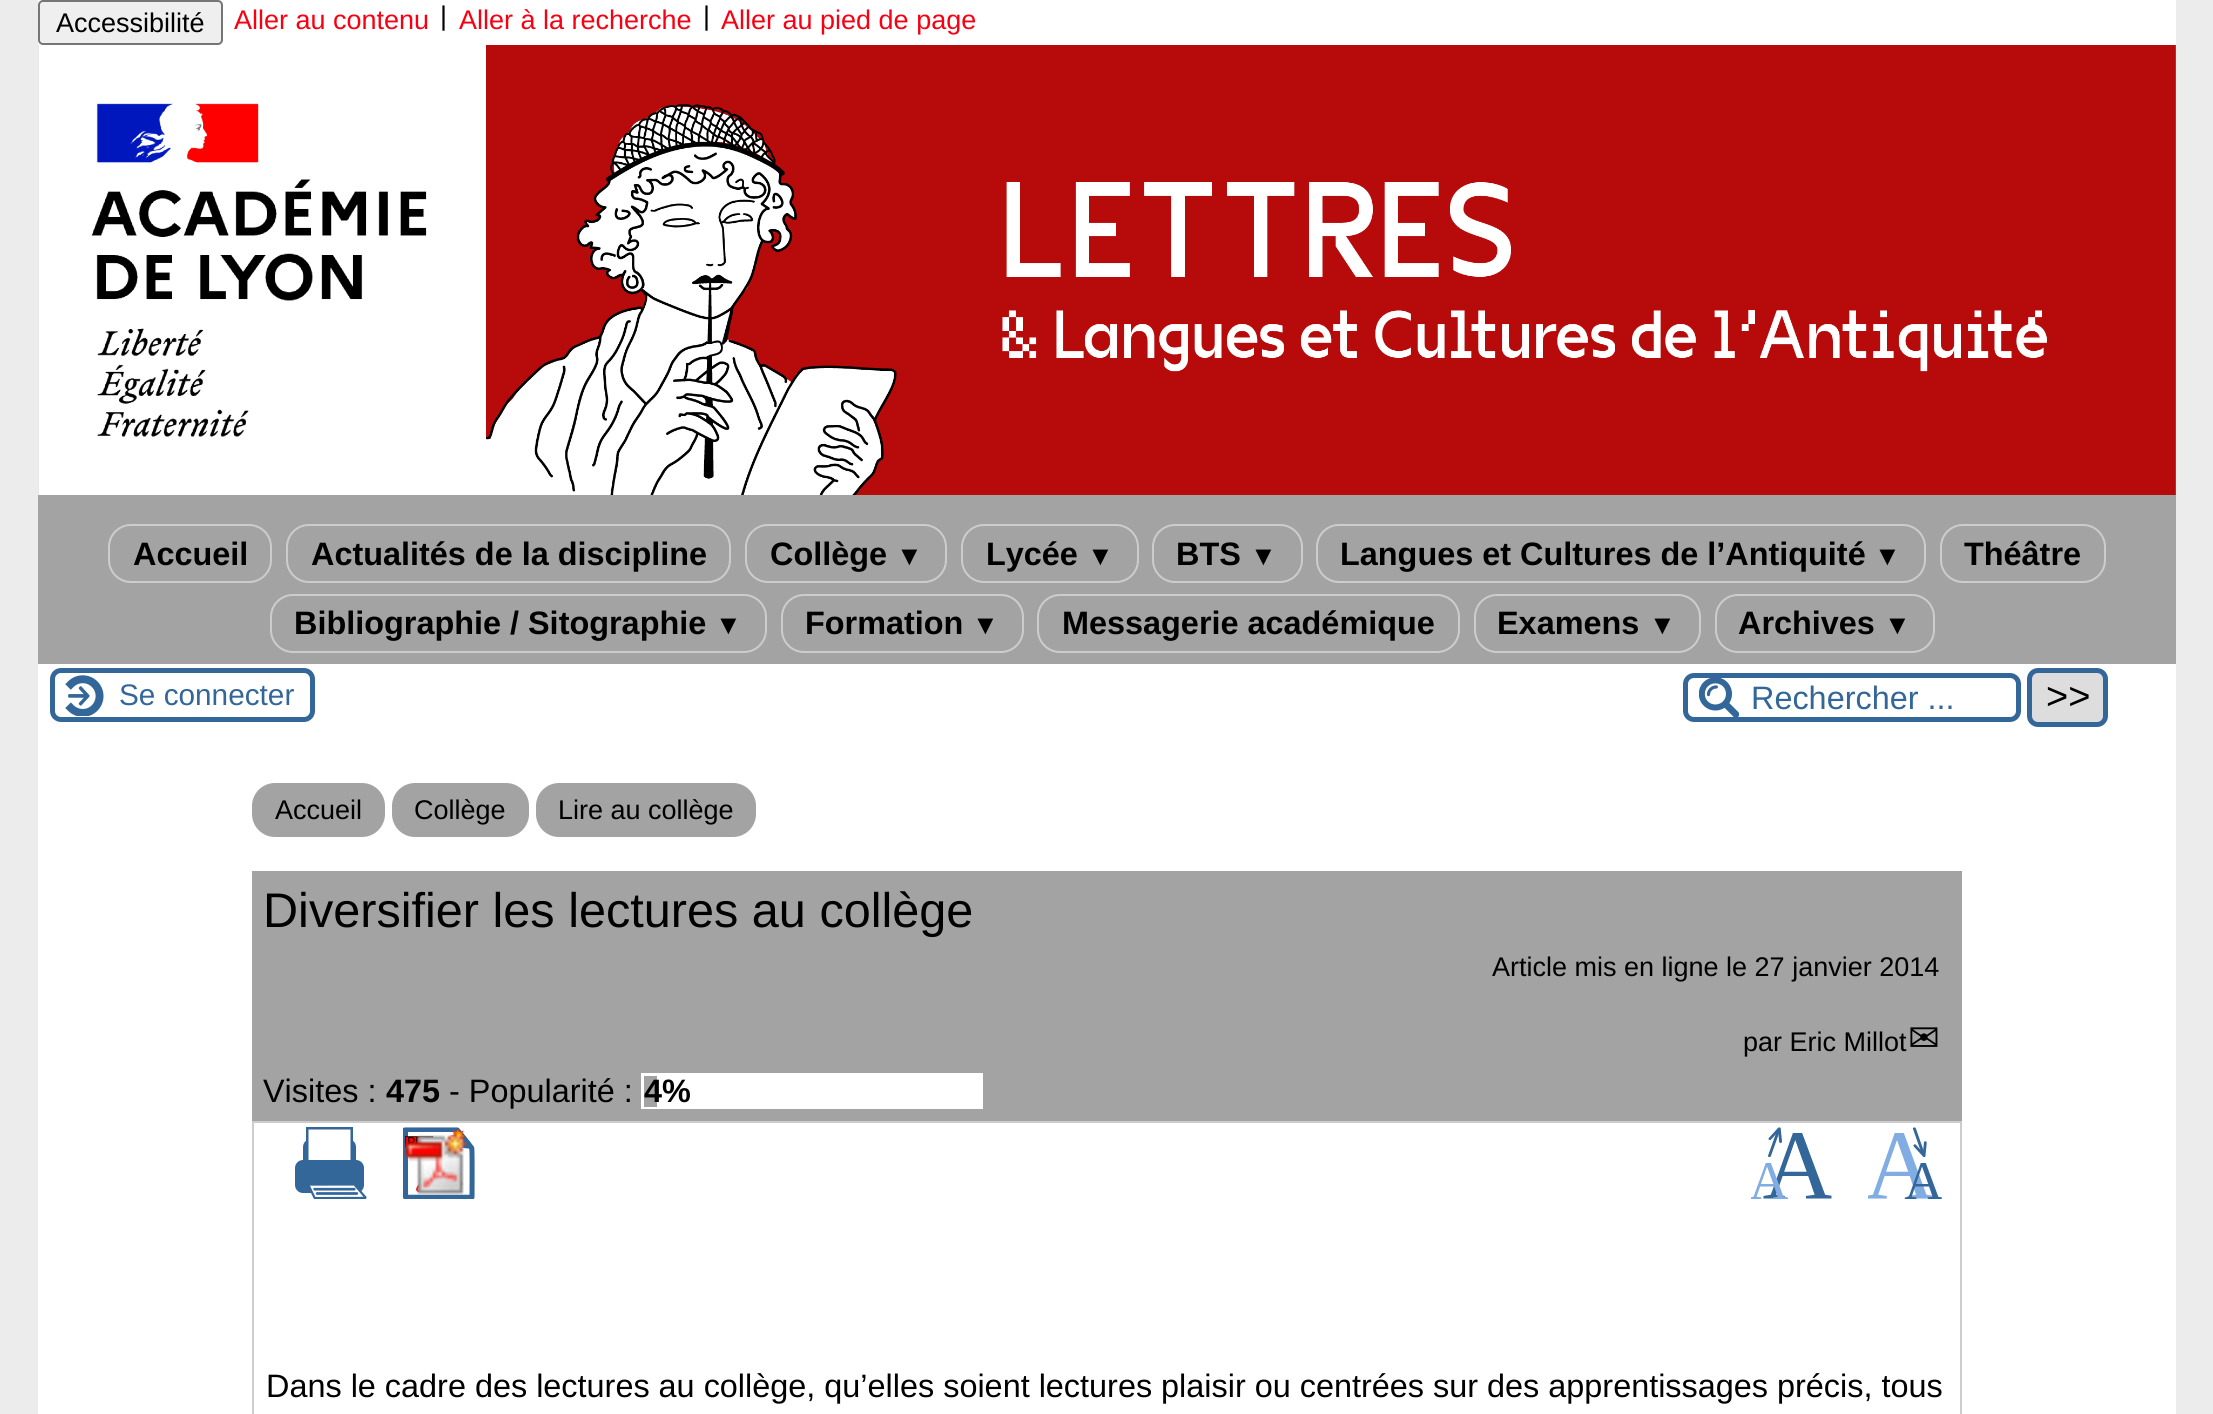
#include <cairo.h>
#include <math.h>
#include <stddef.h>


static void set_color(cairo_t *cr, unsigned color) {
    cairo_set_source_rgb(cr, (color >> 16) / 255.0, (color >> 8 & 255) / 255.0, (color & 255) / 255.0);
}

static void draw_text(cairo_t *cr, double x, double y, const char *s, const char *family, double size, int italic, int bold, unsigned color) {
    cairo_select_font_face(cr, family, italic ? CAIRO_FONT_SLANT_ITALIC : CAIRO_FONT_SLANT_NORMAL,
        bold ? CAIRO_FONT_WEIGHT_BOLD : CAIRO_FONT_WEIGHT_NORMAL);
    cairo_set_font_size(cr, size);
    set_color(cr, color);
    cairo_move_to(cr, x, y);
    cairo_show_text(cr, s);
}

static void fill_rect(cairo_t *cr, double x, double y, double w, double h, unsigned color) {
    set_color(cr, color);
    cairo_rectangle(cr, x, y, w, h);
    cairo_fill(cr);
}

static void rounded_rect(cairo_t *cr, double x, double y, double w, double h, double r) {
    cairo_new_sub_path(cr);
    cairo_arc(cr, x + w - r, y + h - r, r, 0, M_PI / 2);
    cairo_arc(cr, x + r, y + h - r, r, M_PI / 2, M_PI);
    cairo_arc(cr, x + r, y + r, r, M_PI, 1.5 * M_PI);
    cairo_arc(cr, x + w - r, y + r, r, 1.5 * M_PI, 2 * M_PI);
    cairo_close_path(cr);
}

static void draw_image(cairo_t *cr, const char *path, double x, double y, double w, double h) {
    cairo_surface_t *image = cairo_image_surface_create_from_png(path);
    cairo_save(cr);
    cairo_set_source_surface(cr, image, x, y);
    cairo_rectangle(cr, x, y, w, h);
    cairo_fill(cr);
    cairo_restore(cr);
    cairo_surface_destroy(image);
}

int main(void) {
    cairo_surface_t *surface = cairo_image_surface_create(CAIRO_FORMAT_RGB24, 2213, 1414);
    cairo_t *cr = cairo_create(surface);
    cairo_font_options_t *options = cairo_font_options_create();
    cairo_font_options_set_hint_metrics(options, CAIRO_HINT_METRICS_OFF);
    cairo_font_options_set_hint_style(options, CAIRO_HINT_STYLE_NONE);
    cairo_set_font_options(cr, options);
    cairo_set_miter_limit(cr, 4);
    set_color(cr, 0xECECEC);
    cairo_paint(cr);
    fill_rect(cr, 38, 664, 2138, 750, 0xFFFFFF);
    fill_rect(cr, 38, 45, 2138, 619, 0xA3A3A3);
    fill_rect(cr, 38, 0, 2138, 45, 0xFFFFFF);
    set_color(cr, 0xEFEFEF);
    rounded_rect(cr, 39, 1, 183, 43, 4);
    cairo_fill_preserve(cr);
    set_color(cr, 0x767676);
    cairo_stroke(cr);
    draw_text(cr, 56, 32, "Accessibilité", "Liberation Sans", 27, 0, 0, 0x000000);
    draw_text(cr, 234, 29, "Aller au contenu", "Liberation Sans", 27, 0, 0, 0xF80012);
    draw_text(cr, 440, 25, "|", "Liberation Sans", 27, 0, 0, 0x000000);
    draw_text(cr, 459, 29, "Aller à la recherche", "Liberation Sans", 27, 0, 0, 0xF80012);
    draw_text(cr, 703, 25, "|", "Liberation Sans", 27, 0, 0, 0x000000);
    draw_text(cr, 721, 29, "Aller au pied de page", "Liberation Sans", 27, 0, 0, 0xF80012);
    draw_image(cr, "assets/img1.png", 38, 45, 2138, 450);
    rounded_rect(cr, 109, 525, 162, 57, 22);
    set_color(cr, 0xCCCCCC);
    cairo_stroke(cr);
    draw_text(cr, 133, 565, "Accueil", "Liberation Sans", 32.4, 0, 1, 0x000000);
    rounded_rect(cr, 287, 525, 443, 57, 22);
    set_color(cr, 0xCCCCCC);
    cairo_stroke(cr);
    draw_text(cr, 311, 565, "Actualités de la discipline", "Liberation Sans", 32.4, 0, 1, 0x000000);
    rounded_rect(cr, 746, 525, 200, 57, 22);
    set_color(cr, 0xCCCCCC);
    cairo_stroke(cr);
    draw_text(cr, 770, 565, "Collège", "Liberation Sans", 32.4, 0, 1, 0x000000);
    draw_text(cr, 896, 565, "▼", "Liberation Sans", 27, 0, 1, 0x000000);
    rounded_rect(cr, 962, 525, 176, 57, 22);
    set_color(cr, 0xCCCCCC);
    cairo_stroke(cr);
    draw_text(cr, 986, 565, "Lycée", "Liberation Sans", 32.4, 0, 1, 0x000000);
    draw_text(cr, 1087, 565, "▼", "Liberation Sans", 27, 0, 1, 0x000000);
    rounded_rect(cr, 1153, 525, 149, 57, 22);
    set_color(cr, 0xCCCCCC);
    cairo_stroke(cr);
    draw_text(cr, 1176, 565, "BTS", "Liberation Sans", 32.4, 0, 1, 0x000000);
    draw_text(cr, 1250, 565, "▼", "Liberation Sans", 27, 0, 1, 0x000000);
    rounded_rect(cr, 1317, 525, 608, 57, 22);
    set_color(cr, 0xCCCCCC);
    cairo_stroke(cr);
    draw_text(cr, 1340, 565, "Langues et Cultures de l’Antiquité", "Liberation Sans", 32.4, 0, 1, 0x000000);
    draw_text(cr, 1874, 565, "▼", "Liberation Sans", 27, 0, 1, 0x000000);
    rounded_rect(cr, 1941, 525, 164, 57, 22);
    set_color(cr, 0xCCCCCC);
    cairo_stroke(cr);
    draw_text(cr, 1964, 565, "Théâtre", "Liberation Sans", 32.4, 0, 1, 0x000000);
    rounded_rect(cr, 271, 595, 495, 57, 22);
    set_color(cr, 0xCCCCCC);
    cairo_stroke(cr);
    draw_text(cr, 294, 634, "Bibliographie / Sitographie", "Liberation Sans", 32.4, 0, 1, 0x000000);
    draw_text(cr, 715, 634, "▼", "Liberation Sans", 27, 0, 1, 0x000000);
    rounded_rect(cr, 782, 595, 241, 57, 22);
    set_color(cr, 0xCCCCCC);
    cairo_stroke(cr);
    draw_text(cr, 805, 634, "Formation", "Liberation Sans", 32.4, 0, 1, 0x000000);
    draw_text(cr, 972, 634, "▼", "Liberation Sans", 27, 0, 1, 0x000000);
    rounded_rect(cr, 1038, 595, 421, 57, 22);
    set_color(cr, 0xCCCCCC);
    cairo_stroke(cr);
    draw_text(cr, 1062, 634, "Messagerie académique", "Liberation Sans", 32.4, 0, 1, 0x000000);
    rounded_rect(cr, 1475, 595, 225, 57, 22);
    set_color(cr, 0xCCCCCC);
    cairo_stroke(cr);
    draw_text(cr, 1497, 634, "Examens", "Liberation Sans", 32.4, 0, 1, 0x000000);
    draw_text(cr, 1649, 634, "▼", "Liberation Sans", 27, 0, 1, 0x000000);
    rounded_rect(cr, 1716, 595, 218, 57, 22);
    set_color(cr, 0xCCCCCC);
    cairo_stroke(cr);
    draw_text(cr, 1738, 634, "Archives", "Liberation Sans", 32.4, 0, 1, 0x000000);
    draw_text(cr, 1884, 634, "▼", "Liberation Sans", 27, 0, 1, 0x000000);
    draw_image(cr, "assets/img2.png", 65, 675, 39, 41);
    rounded_rect(cr, 52.5, 670.5, 260, 49, 8.5);
    set_color(cr, 0x336699);
    cairo_set_line_width(cr, 5);
    cairo_stroke(cr);
    draw_text(cr, 119, 705, "Se connecter", "Liberation Sans", 29.75, 0, 0, 0x336699);
    draw_image(cr, "assets/img3.png", 1699, 678, 40, 39);
    rounded_rect(cr, 1685.5, 675.5, 333, 44, 8.5);
    cairo_stroke(cr);
    draw_text(cr, 1751, 709, "Rechercher ...", "Liberation Sans", 32.4, 0, 0, 0x336699);
    set_color(cr, 0xDDDDDD);
    rounded_rect(cr, 2029.5, 670.5, 76, 54, 8.5);
    cairo_fill_preserve(cr);
    set_color(cr, 0x336699);
    cairo_stroke(cr);
    draw_text(cr, 2046, 709, ">>", "Liberation Sans", 38, 0, 0, 0x000000);
    set_color(cr, 0xA3A3A3);
    rounded_rect(cr, 252, 783, 133, 54, 23);
    cairo_fill(cr);
    draw_text(cr, 275, 819, "Accueil", "Liberation Sans", 27, 0, 0, 0x000000);
    set_color(cr, 0xA3A3A3);
    rounded_rect(cr, 392, 783, 137, 54, 23);
    cairo_fill(cr);
    draw_text(cr, 414, 819, "Collège", "Liberation Sans", 27, 0, 0, 0x000000);
    set_color(cr, 0xA3A3A3);
    rounded_rect(cr, 536, 783, 220, 54, 23);
    cairo_fill(cr);
    draw_text(cr, 558, 819, "Lire au collège", "Liberation Sans", 27, 0, 0, 0x000000);
    fill_rect(cr, 252, 871, 1710, 250, 0xA3A3A3);
    draw_text(cr, 263, 927, "Diversifier les lectures au collège", "Liberation Sans", 48.6, 0, 0, 0x000000);
    draw_text(cr, 1492, 976, "Article mis en ligne le 27 janvier 2014", "Liberation Sans", 27, 0, 0, 0x000000);
    draw_text(cr, 1743, 1051, "par Eric Millot", "Liberation Sans", 27, 0, 0, 0x000000);
    draw_text(cr, 1908, 1051, "✉", "DejaVu Sans", 38, 0, 0, 0x000000);
    draw_text(cr, 263, 1102, "Visites :", "Liberation Sans", 32.4, 0, 0, 0x000000);
    draw_text(cr, 386, 1102, "475", "Liberation Sans", 32.4, 0, 1, 0x000000);
    draw_text(cr, 449, 1102, "- Popularité :", "Liberation Sans", 32.4, 0, 0, 0x000000);
    fill_rect(cr, 641, 1073, 342, 36, 0xFFFFFF);
    fill_rect(cr, 644, 1076, 13, 31, 0xA3A3A3);
    draw_text(cr, 644, 1102, "4%", "Liberation Sans", 32.4, 0, 1, 0x000000);
    cairo_rectangle(cr, 253, 1122, 1708, 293);
    set_color(cr, 0xCCCCCC);
    cairo_set_line_width(cr, 2);
    cairo_stroke(cr);
    draw_image(cr, "assets/img4.png", 295, 1127, 72, 72);
    draw_image(cr, "assets/img5.png", 403, 1127, 72, 72);
    draw_image(cr, "assets/img6.png", 404, 1132, 63, 63);
    draw_image(cr, "assets/img7.png", 1751, 1127, 81, 72);
    draw_image(cr, "assets/img8.png", 1868, 1127, 74, 72);
    draw_text(cr, 266, 1397, "Dans le cadre des lectures au collège, qu’elles soient lectures plaisir ou centrées sur des apprentissages précis, tous", "Liberation Sans", 32.4, 0, 0, 0x000000);
    cairo_surface_write_to_png(surface, "output.png");
    cairo_font_options_destroy(options);
    cairo_destroy(cr);
    cairo_surface_destroy(surface);
    return 0;
}
